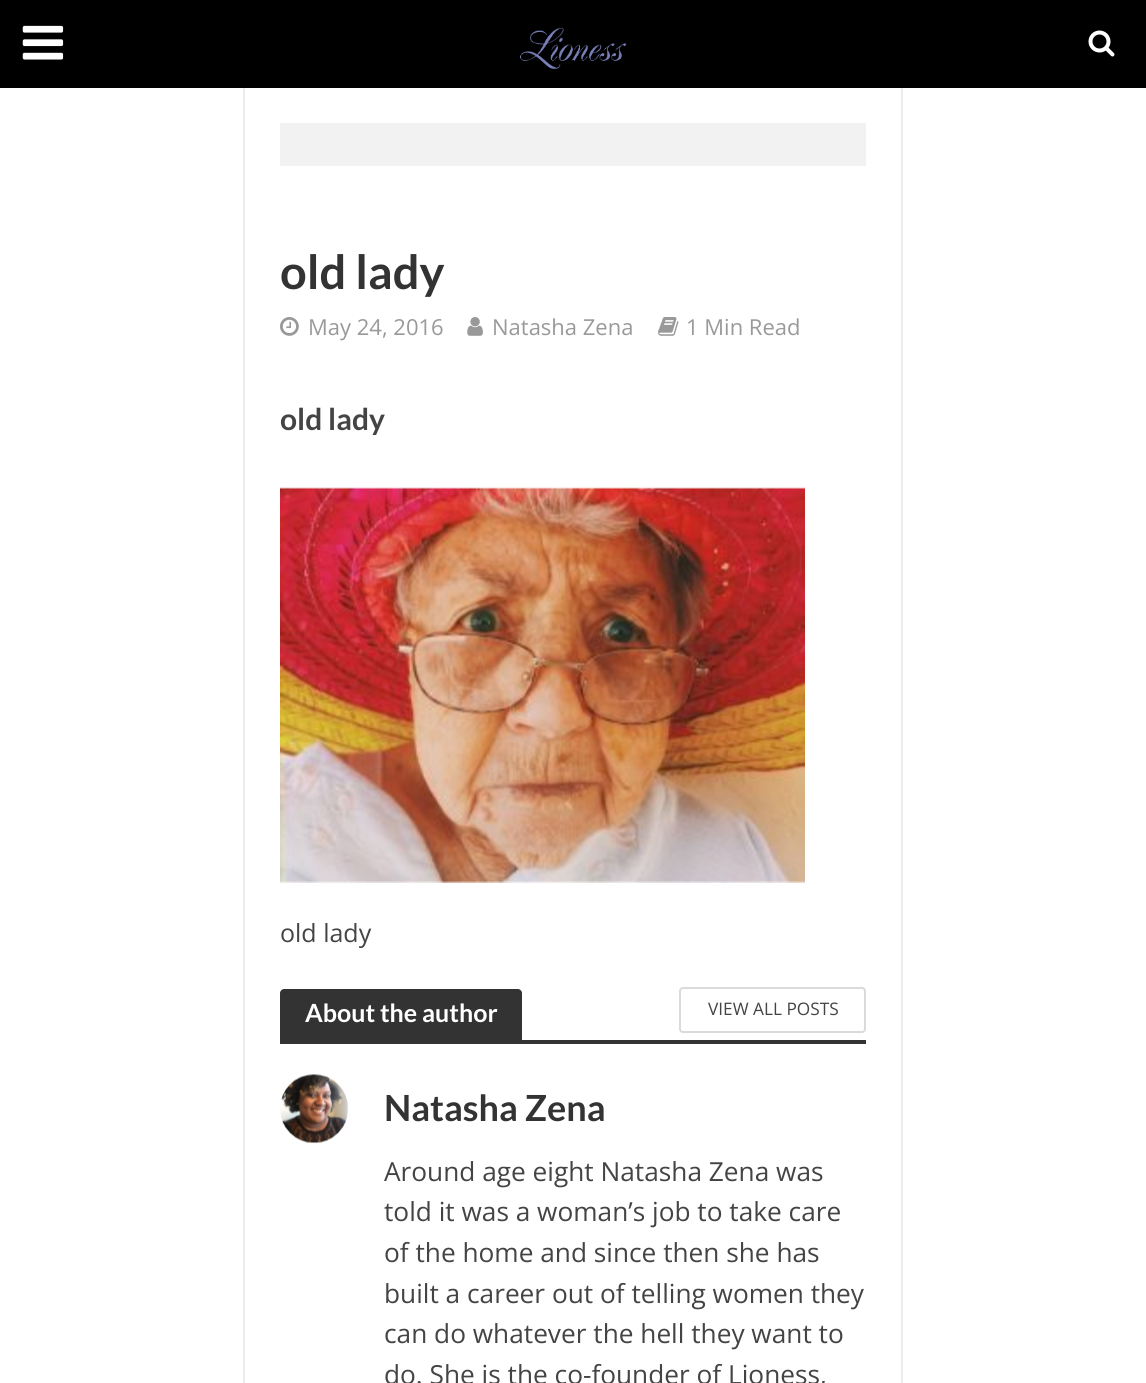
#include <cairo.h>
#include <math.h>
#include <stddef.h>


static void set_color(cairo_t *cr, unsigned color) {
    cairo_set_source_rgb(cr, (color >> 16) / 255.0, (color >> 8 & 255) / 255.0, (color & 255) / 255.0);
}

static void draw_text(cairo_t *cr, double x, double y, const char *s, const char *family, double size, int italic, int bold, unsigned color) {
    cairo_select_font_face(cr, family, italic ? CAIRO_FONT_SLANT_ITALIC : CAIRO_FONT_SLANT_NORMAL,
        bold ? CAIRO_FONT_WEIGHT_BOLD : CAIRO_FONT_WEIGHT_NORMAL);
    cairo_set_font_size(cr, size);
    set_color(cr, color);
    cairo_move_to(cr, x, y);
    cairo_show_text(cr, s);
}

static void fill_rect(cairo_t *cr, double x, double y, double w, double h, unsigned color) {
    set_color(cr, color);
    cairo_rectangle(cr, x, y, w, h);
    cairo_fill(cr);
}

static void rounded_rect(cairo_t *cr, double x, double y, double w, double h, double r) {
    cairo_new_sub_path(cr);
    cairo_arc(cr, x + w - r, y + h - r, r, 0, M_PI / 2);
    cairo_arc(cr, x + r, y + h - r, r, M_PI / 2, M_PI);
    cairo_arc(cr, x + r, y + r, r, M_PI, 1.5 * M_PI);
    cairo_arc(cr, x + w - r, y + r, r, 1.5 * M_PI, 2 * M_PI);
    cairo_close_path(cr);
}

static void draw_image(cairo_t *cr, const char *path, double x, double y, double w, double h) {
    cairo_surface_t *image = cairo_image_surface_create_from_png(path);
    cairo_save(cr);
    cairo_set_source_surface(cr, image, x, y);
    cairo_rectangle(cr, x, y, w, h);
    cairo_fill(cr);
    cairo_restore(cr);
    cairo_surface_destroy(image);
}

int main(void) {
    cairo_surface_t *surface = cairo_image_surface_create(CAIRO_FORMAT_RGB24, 1146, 1383);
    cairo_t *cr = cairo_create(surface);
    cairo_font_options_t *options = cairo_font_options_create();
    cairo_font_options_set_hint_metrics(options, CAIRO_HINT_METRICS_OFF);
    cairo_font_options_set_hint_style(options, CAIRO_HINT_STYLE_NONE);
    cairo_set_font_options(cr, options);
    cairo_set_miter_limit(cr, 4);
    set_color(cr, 0xFFFFFF);
    cairo_paint(cr);
    cairo_rectangle(cr, 244, 87, 658, 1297);
    set_color(cr, 0xECECEC);
    cairo_stroke(cr);
    fill_rect(cr, 0, 0, 1146, 88, 0x000000);
    draw_image(cr, "assets/img1.png", 22, 25, 42, 35);
    draw_image(cr, "assets/img2.png", 520, 27, 107, 43);
    draw_image(cr, "assets/img3.png", 1088, 30, 27, 27);
    fill_rect(cr, 280, 123, 586, 43, 0xF2F2F2);
    draw_text(cr, 280, 289, "old lady", "Lato", 47, 0, 1, 0x333333);
    draw_image(cr, "assets/img4.png", 280, 317, 19, 19);
    draw_text(cr, 308, 335, "May 24, 2016", "Open Sans", 22, 0, 0, 0x999999);
    draw_image(cr, "assets/img5.png", 467, 317, 16, 19);
    draw_text(cr, 492, 335, "Natasha Zena", "Open Sans", 22, 0, 0, 0x999999);
    draw_image(cr, "assets/img6.png", 658, 317, 21, 19);
    draw_text(cr, 686, 335, "1 Min Read", "Open Sans", 22, 0, 0, 0x999999);
    draw_text(cr, 280, 430, "old lady", "Lato", 30, 0, 1, 0x444444);
    draw_image(cr, "assets/img7.png", 280, 487, 525, 396);
    draw_text(cr, 280, 942, "old lady", "Open Sans", 25, 0, 0, 0x444444);
    set_color(cr, 0x333333);
    cairo_new_path(cr);
    cairo_move_to(cr, 284, 989);
    cairo_line_to(cr, 518, 989);
    cairo_curve_to(cr, 520, 989, 522, 991, 522, 993);
    cairo_line_to(cr, 522, 1040);
    cairo_line_to(cr, 280, 1040);
    cairo_line_to(cr, 280, 993);
    cairo_curve_to(cr, 280, 991, 282, 989, 284, 989);
    cairo_close_path(cr);
    cairo_fill(cr);
    draw_text(cr, 305, 1022, "About the author", "Lato", 25, 0, 1, 0xFFFFFF);
    rounded_rect(cr, 680, 988, 185, 44, 3);
    set_color(cr, 0xDADADA);
    cairo_stroke(cr);
    draw_text(cr, 708, 1015, "VIEW ALL POSTS", "Open Sans", 17.25, 0, 0, 0x444444);
    fill_rect(cr, 280, 1040, 586, 4, 0x333333);
    draw_image(cr, "assets/img8.png", 280, 1074, 68, 70);
    draw_text(cr, 384, 1121, "Natasha Zena", "Lato", 36, 0, 1, 0x333333);
    draw_text(cr, 384, 1181, "Around age eight Natasha Zena was", "Open Sans", 26.25, 0, 0, 0x444444);
    draw_text(cr, 384, 1221, "told it was a woman’s job to take care", "Open Sans", 26.25, 0, 0, 0x444444);
    draw_text(cr, 384, 1262, "of the home and since then she has", "Open Sans", 26.25, 0, 0, 0x444444);
    draw_text(cr, 384, 1303, "built a career out of telling women they", "Open Sans", 26.25, 0, 0, 0x444444);
    draw_text(cr, 384, 1343, "can do whatever the hell they want to", "Open Sans", 26.25, 0, 0, 0x444444);
    draw_text(cr, 384, 1384, "do. She is the co-founder of Lioness,", "Open Sans", 26.25, 0, 0, 0x444444);
    cairo_surface_write_to_png(surface, "output.png");
    cairo_font_options_destroy(options);
    cairo_destroy(cr);
    cairo_surface_destroy(surface);
    return 0;
}
